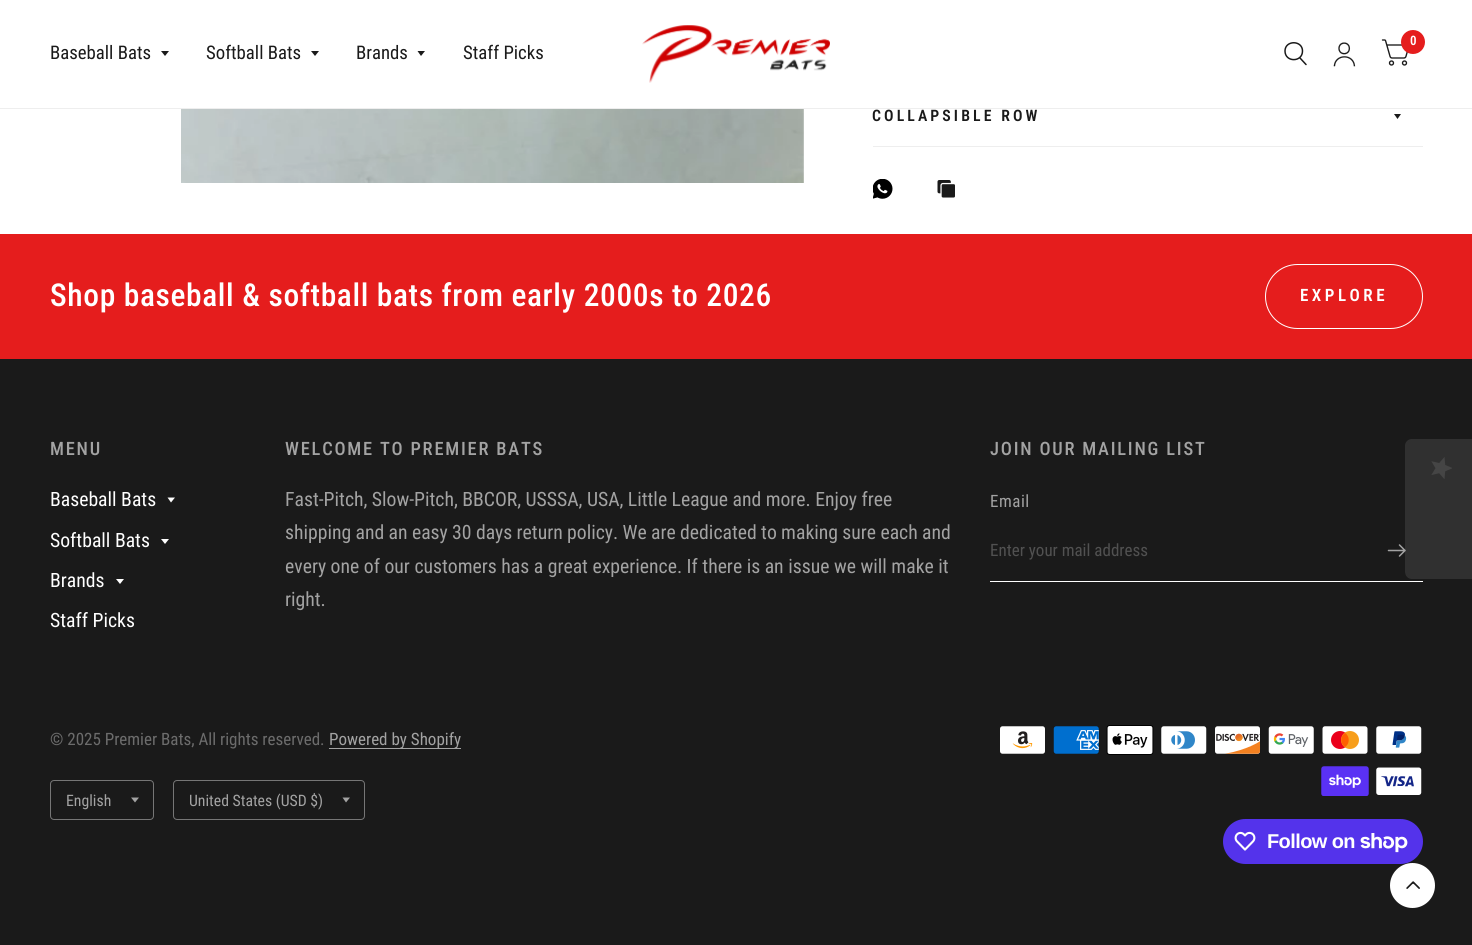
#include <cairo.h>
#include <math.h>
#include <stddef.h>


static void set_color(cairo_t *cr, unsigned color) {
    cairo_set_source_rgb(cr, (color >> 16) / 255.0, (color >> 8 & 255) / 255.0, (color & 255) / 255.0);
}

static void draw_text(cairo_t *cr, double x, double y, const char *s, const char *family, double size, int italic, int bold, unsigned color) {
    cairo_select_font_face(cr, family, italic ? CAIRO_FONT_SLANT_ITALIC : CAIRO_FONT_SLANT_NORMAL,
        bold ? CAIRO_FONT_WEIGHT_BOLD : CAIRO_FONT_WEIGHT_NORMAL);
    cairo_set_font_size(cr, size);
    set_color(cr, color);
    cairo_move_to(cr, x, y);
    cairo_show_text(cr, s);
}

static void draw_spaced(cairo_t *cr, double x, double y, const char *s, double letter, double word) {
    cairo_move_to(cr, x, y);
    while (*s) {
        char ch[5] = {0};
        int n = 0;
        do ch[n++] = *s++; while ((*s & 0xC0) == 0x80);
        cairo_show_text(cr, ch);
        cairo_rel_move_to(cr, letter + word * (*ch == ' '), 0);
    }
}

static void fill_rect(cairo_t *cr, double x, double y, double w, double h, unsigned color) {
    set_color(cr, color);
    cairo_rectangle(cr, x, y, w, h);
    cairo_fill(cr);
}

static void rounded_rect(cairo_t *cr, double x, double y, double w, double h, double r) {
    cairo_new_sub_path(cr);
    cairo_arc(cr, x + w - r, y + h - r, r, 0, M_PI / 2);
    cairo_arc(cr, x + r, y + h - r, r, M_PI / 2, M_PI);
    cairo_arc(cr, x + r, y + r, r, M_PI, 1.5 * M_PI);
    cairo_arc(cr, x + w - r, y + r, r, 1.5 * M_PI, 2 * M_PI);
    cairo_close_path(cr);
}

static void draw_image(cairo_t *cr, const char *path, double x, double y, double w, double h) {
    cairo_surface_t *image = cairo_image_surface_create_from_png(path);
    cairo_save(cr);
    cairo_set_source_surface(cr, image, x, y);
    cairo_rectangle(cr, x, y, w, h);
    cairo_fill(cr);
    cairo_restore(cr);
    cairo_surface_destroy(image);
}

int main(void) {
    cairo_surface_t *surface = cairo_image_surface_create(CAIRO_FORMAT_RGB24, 1472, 945);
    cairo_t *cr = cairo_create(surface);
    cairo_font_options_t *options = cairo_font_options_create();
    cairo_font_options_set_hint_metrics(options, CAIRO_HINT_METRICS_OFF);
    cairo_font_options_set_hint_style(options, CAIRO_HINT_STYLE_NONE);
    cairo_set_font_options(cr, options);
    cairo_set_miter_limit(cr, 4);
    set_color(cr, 0xFFFFFF);
    cairo_paint(cr);
    fill_rect(cr, 0, 108, 1472, 1, 0xEEEEEE);
    draw_image(cr, "assets/img1.png", 642, 25, 188, 58);
    draw_image(cr, "assets/img2.png", 1381, 39, 27, 27);
    set_color(cr, 0xE51D1D);
    cairo_arc(cr, 1413, 42, 12, 0, 2 * M_PI);
    cairo_fill(cr);
    draw_text(cr, 1410, 45, "0", "Roboto Condensed SemiBold", 13, 0, 0, 0xFFFFFF);
    cairo_new_path(cr);
    cairo_move_to(cr, 1300, 58);
    cairo_line_to(cr, 1306, 64.5);
    cairo_move_to(cr, 1302.5, 51);
    cairo_curve_to(cr, 1302.5, 62.5, 1285, 62.5, 1285, 51);
    cairo_curve_to(cr, 1285, 40, 1302.5, 40, 1302.5, 51);
    cairo_close_path(cr);
    set_color(cr, 0x1A1A1A);
    cairo_set_line_width(cr, 1.5);
    cairo_set_line_cap(cr, CAIRO_LINE_CAP_ROUND);
    cairo_set_line_join(cr, CAIRO_LINE_JOIN_ROUND);
    cairo_stroke(cr);
    draw_image(cr, "assets/img3.png", 1333, 42, 23, 25);
    draw_text(cr, 50, 59, "Baseball Bats", "Roboto Condensed", 18.75, 0, 0, 0x1A1A1A);
    cairo_new_path(cr);
    cairo_move_to(cr, 161, 51);
    cairo_line_to(cr, 169, 51);
    cairo_line_to(cr, 165, 56);
    cairo_close_path(cr);
    cairo_fill(cr);
    draw_text(cr, 206, 59, "Softball Bats", "Roboto Condensed", 18.75, 0, 0, 0x1A1A1A);
    cairo_new_path(cr);
    cairo_move_to(cr, 311, 51);
    cairo_line_to(cr, 319, 51);
    cairo_line_to(cr, 315, 56);
    cairo_close_path(cr);
    cairo_fill(cr);
    draw_text(cr, 356, 59, "Brands", "Roboto Condensed", 18.75, 0, 0, 0x1A1A1A);
    cairo_new_path(cr);
    cairo_move_to(cr, 417.5, 51);
    cairo_line_to(cr, 425, 51);
    cairo_line_to(cr, 421, 56);
    cairo_close_path(cr);
    cairo_fill(cr);
    draw_text(cr, 463, 59, "Staff Picks", "Roboto Condensed", 18.75, 0, 0, 0x1A1A1A);
    draw_image(cr, "assets/img4.png", 181, 109, 623, 74);
    fill_rect(cr, 873, 146, 550, 1, 0xEEEEEE);
    cairo_select_font_face(cr, "Roboto Condensed SemiBold", CAIRO_FONT_SLANT_NORMAL, CAIRO_FONT_WEIGHT_NORMAL);
    cairo_set_font_size(cr, 15.75);
    set_color(cr, 0x1A1A1A);
    draw_spaced(cr, 872, 121, "COLLAPSIBLE ROW", 3.1, 0);
    cairo_new_path(cr);
    cairo_move_to(cr, 1394, 114);
    cairo_line_to(cr, 1401, 114);
    cairo_line_to(cr, 1397.5, 119);
    cairo_close_path(cr);
    cairo_fill(cr);
    draw_image(cr, "assets/img5.png", 873, 179, 20, 20);
    draw_image(cr, "assets/img6.png", 937, 180, 18, 18);
    fill_rect(cr, 0, 234, 1472, 125, 0xE51D1D);
    cairo_select_font_face(cr, "Roboto Condensed Medium", CAIRO_FONT_SLANT_NORMAL, CAIRO_FONT_WEIGHT_NORMAL);
    cairo_set_font_size(cr, 31.5);
    set_color(cr, 0xFFFFFF);
    draw_spaced(cr, 50, 306, "Shop baseball & softball bats from early 2000s to 2026", 0.63, 0);
    rounded_rect(cr, 1265.5, 264.5, 157, 64, 32);
    cairo_set_line_width(cr, 1);
    cairo_set_line_cap(cr, CAIRO_LINE_CAP_BUTT);
    cairo_set_line_join(cr, CAIRO_LINE_JOIN_MITER);
    cairo_stroke(cr);
    cairo_select_font_face(cr, "Roboto Condensed SemiBold", CAIRO_FONT_SLANT_NORMAL, CAIRO_FONT_WEIGHT_NORMAL);
    cairo_set_font_size(cr, 17);
    draw_spaced(cr, 1300, 301, "EXPLORE", 3.5, 0);
    fill_rect(cr, 0, 359, 1472, 586, 0x1A1A1A);
    cairo_select_font_face(cr, "Roboto Condensed Medium", CAIRO_FONT_SLANT_NORMAL, CAIRO_FONT_WEIGHT_NORMAL);
    cairo_set_font_size(cr, 18.4);
    set_color(cr, 0xA3A3A3);
    draw_spaced(cr, 50, 455, "MENU", 1.8, 0);
    draw_text(cr, 50, 506, "Baseball Bats", "Roboto Condensed", 19.7, 0, 0, 0xFFFFFF);
    cairo_new_path(cr);
    cairo_move_to(cr, 167.5, 497.5);
    cairo_line_to(cr, 175, 497.5);
    cairo_line_to(cr, 171, 502.5);
    cairo_close_path(cr);
    cairo_move_to(cr, 161, 539);
    cairo_line_to(cr, 169, 539);
    cairo_line_to(cr, 165, 544);
    cairo_close_path(cr);
    cairo_fill(cr);
    draw_text(cr, 50, 547, "Softball Bats", "Roboto Condensed", 19.7, 0, 0, 0xFFFFFF);
    draw_text(cr, 50, 587, "Brands", "Roboto Condensed", 19.7, 0, 0, 0xFFFFFF);
    cairo_new_path(cr);
    cairo_move_to(cr, 116, 579);
    cairo_line_to(cr, 124, 579);
    cairo_line_to(cr, 120, 584);
    cairo_close_path(cr);
    cairo_fill(cr);
    draw_text(cr, 50, 627, "Staff Picks", "Roboto Condensed", 19.7, 0, 0, 0xFFFFFF);
    cairo_select_font_face(cr, "Roboto Condensed Medium", CAIRO_FONT_SLANT_NORMAL, CAIRO_FONT_WEIGHT_NORMAL);
    cairo_set_font_size(cr, 18.4);
    set_color(cr, 0xA3A3A3);
    draw_spaced(cr, 285, 455, "WELCOME TO PREMIER BATS", 1.8, 0);
    cairo_select_font_face(cr, "Roboto Condensed", CAIRO_FONT_SLANT_NORMAL, CAIRO_FONT_WEIGHT_NORMAL);
    cairo_set_font_size(cr, 19.7);
    draw_spaced(cr, 285, 506, "Fast-Pitch, Slow-Pitch, BBCOR, USSSA, USA, Little League and more. Enjoy free", 0, -0.1);
    draw_spaced(cr, 285, 539, "shipping and an easy 30 days return policy. We are dedicated to making sure each and", 0, -0.2);
    draw_text(cr, 285, 573, "every one of our customers has a great experience. If there is an issue we will make it", "Roboto Condensed", 19.7, 0, 0, 0xA3A3A3);
    draw_text(cr, 285, 606, "right.", "Roboto Condensed", 19.7, 0, 0, 0xA3A3A3);
    cairo_select_font_face(cr, "Roboto Condensed Medium", CAIRO_FONT_SLANT_NORMAL, CAIRO_FONT_WEIGHT_NORMAL);
    cairo_set_font_size(cr, 18.4);
    draw_spaced(cr, 990, 455, "JOIN OUR MAILING LIST", 1.8, 0);
    cairo_select_font_face(cr, "Roboto Condensed", CAIRO_FONT_SLANT_NORMAL, CAIRO_FONT_WEIGHT_NORMAL);
    cairo_set_font_size(cr, 17);
    draw_spaced(cr, 990, 507, "Email", 0.5, 0);
    fill_rect(cr, 990, 581, 433, 1, 0xFFFFFF);
    draw_text(cr, 990, 556, "Enter your mail address", "Roboto Condensed", 17, 0, 0, 0x515151);
    cairo_new_path(cr);
    cairo_move_to(cr, 1388.5, 550.5);
    cairo_line_to(cr, 1403.5, 550.5);
    cairo_move_to(cr, 1399.5, 545);
    cairo_line_to(cr, 1405, 550.5);
    cairo_line_to(cr, 1399.5, 556);
    set_color(cr, 0xA3A3A3);
    cairo_set_line_width(cr, 1.5);
    cairo_set_line_cap(cr, CAIRO_LINE_CAP_ROUND);
    cairo_set_line_join(cr, CAIRO_LINE_JOIN_ROUND);
    cairo_stroke(cr);
    draw_text(cr, 50, 745, "© 2025 Premier Bats, All rights reserved.", "Roboto Condensed", 17, 0, 0, 0x6C6C6C);
    fill_rect(cr, 329, 748, 132, 1, 0xA3A3A3);
    draw_text(cr, 329, 745, "Powered by Shopify", "Roboto Condensed", 17, 0, 0, 0xA3A3A3);
    rounded_rect(cr, 50.5, 780.5, 103, 39, 3.5);
    set_color(cr, 0x767676);
    cairo_set_line_width(cr, 1);
    cairo_set_line_cap(cr, CAIRO_LINE_CAP_BUTT);
    cairo_set_line_join(cr, CAIRO_LINE_JOIN_MITER);
    cairo_stroke(cr);
    draw_text(cr, 66, 806, "English", "Roboto Condensed", 15.75, 0, 0, 0xA3A3A3);
    cairo_new_path(cr);
    cairo_move_to(cr, 131, 797.5);
    cairo_line_to(cr, 139, 797.5);
    cairo_line_to(cr, 135, 802.5);
    cairo_close_path(cr);
    cairo_fill(cr);
    rounded_rect(cr, 173.5, 780.5, 191, 39, 3.5);
    set_color(cr, 0x767676);
    cairo_stroke(cr);
    draw_text(cr, 189, 806, "United States (USD $)", "Roboto Condensed", 15.75, 0, 0, 0xA3A3A3);
    cairo_new_path(cr);
    cairo_move_to(cr, 342.5, 797.5);
    cairo_line_to(cr, 350, 797.5);
    cairo_line_to(cr, 346, 802.5);
    cairo_close_path(cr);
    cairo_fill(cr);
    draw_image(cr, "assets/img7.png", 1000, 726, 45, 28);
    draw_image(cr, "assets/img8.png", 1053, 726, 46, 28);
    draw_image(cr, "assets/img9.png", 1106, 725, 48, 30);
    draw_image(cr, "assets/img10.png", 1161, 726, 46, 28);
    draw_image(cr, "assets/img11.png", 1215, 726, 46, 28);
    draw_image(cr, "assets/img12.png", 1268, 726, 46, 28);
    draw_image(cr, "assets/img13.png", 1322, 726, 46, 28);
    draw_image(cr, "assets/img14.png", 1376, 726, 46, 28);
    draw_image(cr, "assets/img15.png", 1321, 766, 48, 30);
    draw_image(cr, "assets/img16.png", 1376, 767, 46, 28);
    set_color(cr, 0x5433EB);
    rounded_rect(cr, 1223, 819, 200, 45, 22.5);
    cairo_fill(cr);
    draw_image(cr, "assets/img17.png", 1234, 831, 22, 20);
    cairo_select_font_face(cr, "Liberation Sans", CAIRO_FONT_SLANT_NORMAL, CAIRO_FONT_WEIGHT_BOLD);
    cairo_set_font_size(cr, 20);
    set_color(cr, 0xFFFFFF);
    draw_spaced(cr, 1267, 848, "Follow on", -0.6, 0);
    draw_image(cr, "assets/img18.png", 1360, 833, 48, 20);
    cairo_set_source_rgba(cr, 1, 1, 1, 0.1);
    cairo_new_path(cr);
    cairo_move_to(cr, 1472, 439);
    cairo_line_to(cr, 1472, 579);
    cairo_line_to(cr, 1412, 579);
    cairo_curve_to(cr, 1408, 579, 1405, 576, 1405, 571);
    cairo_line_to(cr, 1405, 446);
    cairo_curve_to(cr, 1405, 442, 1408, 439, 1412, 439);
    cairo_close_path(cr);
    cairo_fill(cr);
    draw_image(cr, "assets/img19.png", 1431, 457, 21, 22);
    set_color(cr, 0xFFFFFF);
    cairo_arc(cr, 1412.5, 885.5, 22.5, 0, 2 * M_PI);
    cairo_fill(cr);
    draw_image(cr, "assets/img20.png", 1406, 881, 14, 8);
    cairo_surface_write_to_png(surface, "output.png");
    cairo_font_options_destroy(options);
    cairo_destroy(cr);
    cairo_surface_destroy(surface);
    return 0;
}
